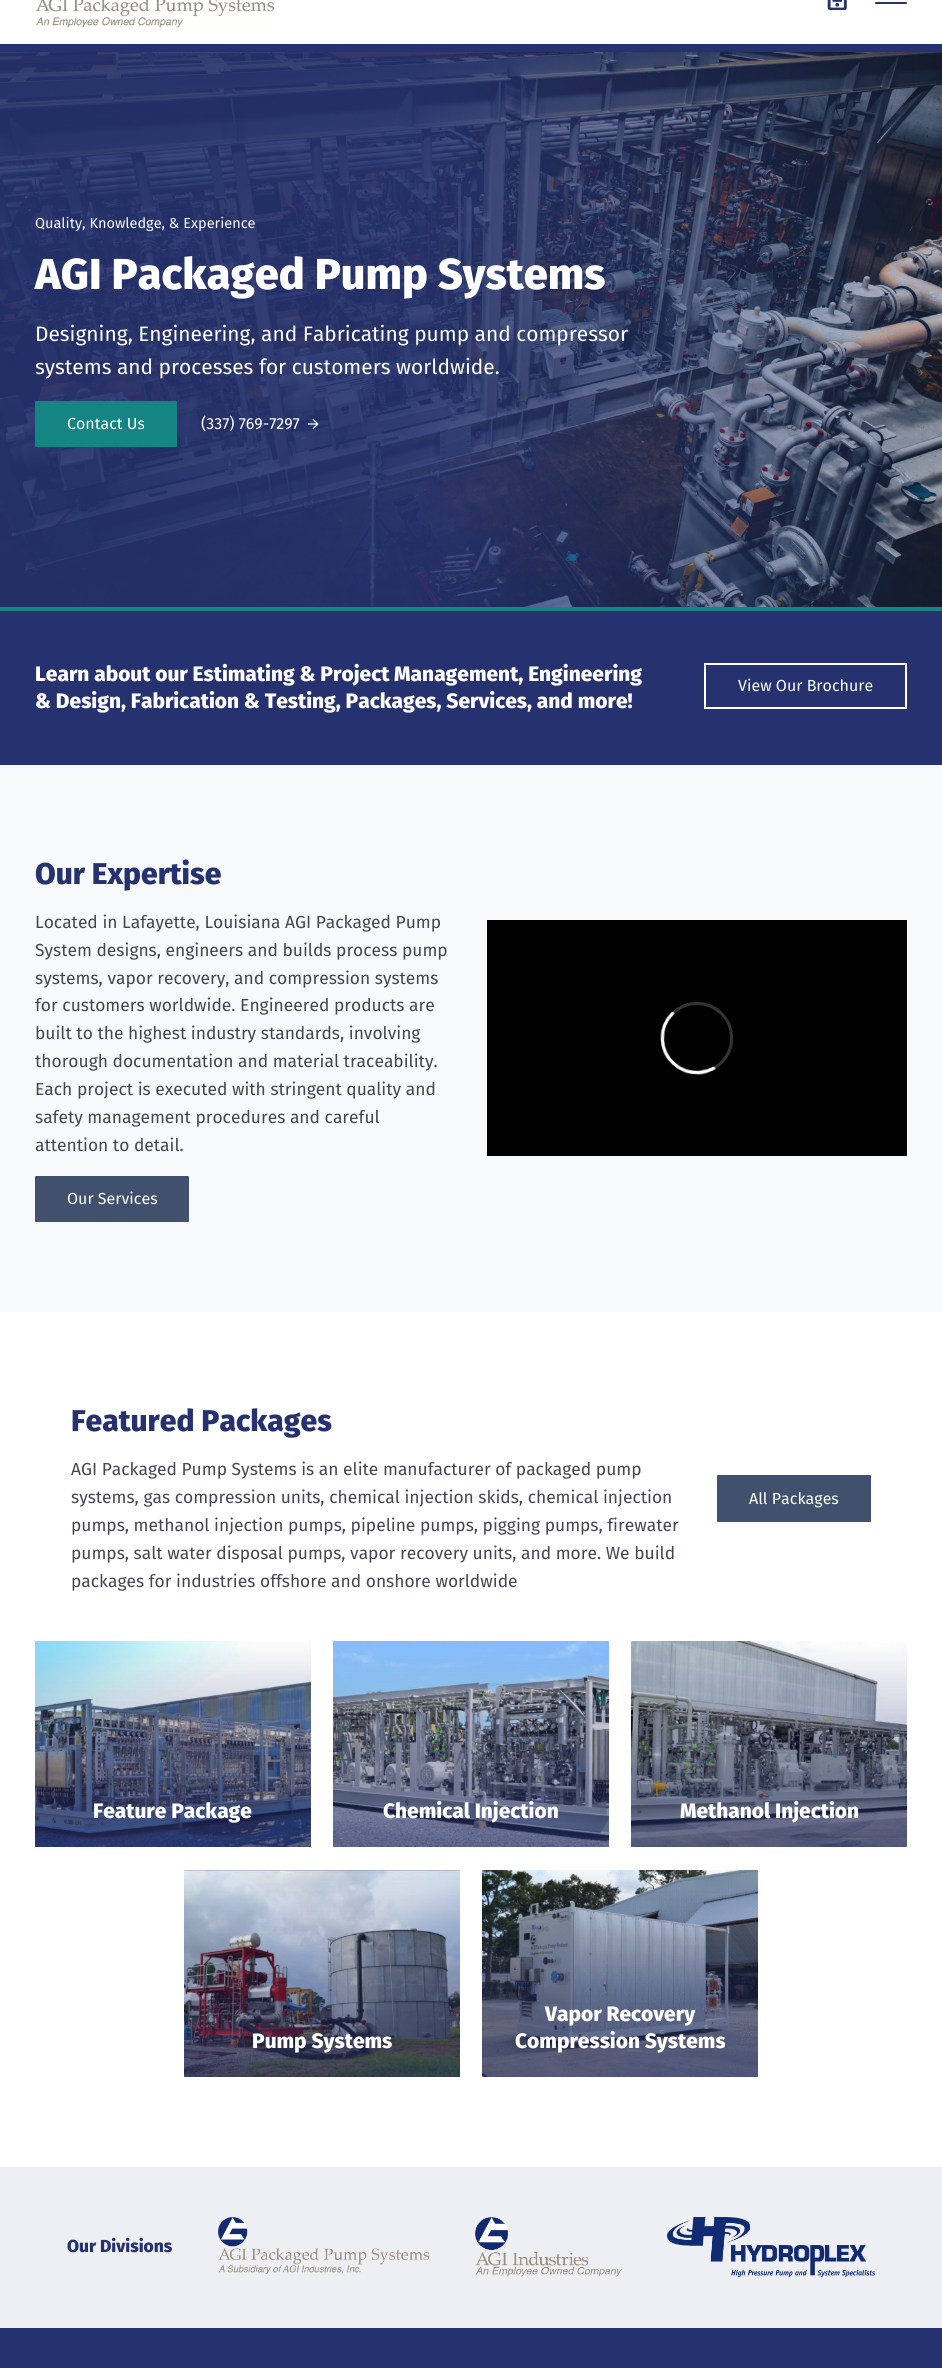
#include <cairo.h>
#include <math.h>
#include <stddef.h>


static void set_color(cairo_t *cr, unsigned color) {
    cairo_set_source_rgb(cr, (color >> 16) / 255.0, (color >> 8 & 255) / 255.0, (color & 255) / 255.0);
}

static void draw_text(cairo_t *cr, double x, double y, const char *s, const char *family, double size, int italic, int bold, unsigned color) {
    cairo_select_font_face(cr, family, italic ? CAIRO_FONT_SLANT_ITALIC : CAIRO_FONT_SLANT_NORMAL,
        bold ? CAIRO_FONT_WEIGHT_BOLD : CAIRO_FONT_WEIGHT_NORMAL);
    cairo_set_font_size(cr, size);
    set_color(cr, color);
    cairo_move_to(cr, x, y);
    cairo_show_text(cr, s);
}

static void fill_rect(cairo_t *cr, double x, double y, double w, double h, unsigned color) {
    set_color(cr, color);
    cairo_rectangle(cr, x, y, w, h);
    cairo_fill(cr);
}

static void rounded_rect(cairo_t *cr, double x, double y, double w, double h, double r) {
    cairo_new_sub_path(cr);
    cairo_arc(cr, x + w - r, y + h - r, r, 0, M_PI / 2);
    cairo_arc(cr, x + r, y + h - r, r, M_PI / 2, M_PI);
    cairo_arc(cr, x + r, y + r, r, M_PI, 1.5 * M_PI);
    cairo_arc(cr, x + w - r, y + r, r, 1.5 * M_PI, 2 * M_PI);
    cairo_close_path(cr);
}

static void draw_image(cairo_t *cr, const char *path, double x, double y, double w, double h) {
    cairo_surface_t *image = cairo_image_surface_create_from_png(path);
    cairo_save(cr);
    cairo_set_source_surface(cr, image, x, y);
    cairo_rectangle(cr, x, y, w, h);
    cairo_fill(cr);
    cairo_restore(cr);
    cairo_surface_destroy(image);
}

int main(void) {
    cairo_surface_t *surface = cairo_image_surface_create(CAIRO_FORMAT_RGB24, 942, 2368);
    cairo_t *cr = cairo_create(surface);
    cairo_font_options_t *options = cairo_font_options_create();
    cairo_font_options_set_hint_metrics(options, CAIRO_HINT_METRICS_OFF);
    cairo_font_options_set_hint_style(options, CAIRO_HINT_STYLE_NONE);
    cairo_set_font_options(cr, options);
    cairo_set_miter_limit(cr, 4);
    cairo_pattern_t *gradient;
    set_color(cr, 0xFFFFFF);
    cairo_paint(cr);
    fill_rect(cr, 0, 44, 942, 8, 0x25326F);
    draw_image(cr, "assets/img1.png", 35, 0, 240, 28);
    draw_image(cr, "assets/img2.png", 827, 0, 20, 10);
    rounded_rect(cr, 875, 2, 32, 2, 1);
    cairo_fill(cr);
    draw_image(cr, "assets/img3.png", 0, 52, 942, 555);
    draw_text(cr, 35, 228, "Quality, Knowledge, & Experience", "Fira Sans", 14.5, 0, 0, 0xF8F9FA);
    draw_text(cr, 35, 289, "AGI Packaged Pump Systems", "Fira Sans ExtraBold", 43.3, 0, 0, 0xFFFFFF);
    draw_text(cr, 35, 341, "Designing, Engineering, and Fabricating pump and compressor", "Fira Sans", 20.9, 0, 0, 0xFFFFFF);
    draw_text(cr, 35, 374, "systems and processes for customers worldwide.", "Fira Sans", 20.9, 0, 0, 0xFFFFFF);
    set_color(cr, 0x148582);
    rounded_rect(cr, 35, 401, 142, 46, 1);
    cairo_fill(cr);
    draw_text(cr, 67, 429, "Contact Us", "Fira Sans", 16, 0, 0, 0xFFFFFF);
    draw_text(cr, 201, 429, "(337) 769-7297", "Fira Sans", 16, 0, 0, 0xFFFFFF);
    draw_image(cr, "assets/img4.png", 308, 418, 11, 12);
    fill_rect(cr, 0, 607, 942, 4, 0x148582);
    fill_rect(cr, 0, 611, 942, 154, 0x25326F);
    draw_text(cr, 35, 681, "Learn about our Estimating & Project Management, Engineering", "Fira Sans ExtraBold", 20.9, 0, 0, 0xFFFFFF);
    draw_text(cr, 35, 708, "& Design, Fabrication & Testing, Packages, Services, and more!", "Fira Sans ExtraBold", 20.9, 0, 0, 0xFFFFFF);
    cairo_rectangle(cr, 705, 664, 201, 44);
    cairo_stroke(cr);
    draw_text(cr, 738, 691, "View Our Brochure", "Fira Sans", 16, 0, 0, 0xFFFFFF);
    fill_rect(cr, 0, 765, 942, 547, 0xF8F9FA);
    draw_text(cr, 35, 884, "Our Expertise", "Fira Sans ExtraBold", 30, 0, 0, 0x25326F);
    draw_text(cr, 35, 928, "Located in Lafayette, Louisiana AGI Packaged Pump", "Fira Sans", 17.4, 0, 0, 0x464555);
    draw_text(cr, 35, 956, "System designs, engineers and builds process pump", "Fira Sans", 17.4, 0, 0, 0x464555);
    draw_text(cr, 35, 984, "systems, vapor recovery, and compression systems", "Fira Sans", 17.4, 0, 0, 0x464555);
    draw_text(cr, 35, 1011, "for customers worldwide. Engineered products are", "Fira Sans", 17.4, 0, 0, 0x464555);
    draw_text(cr, 35, 1039, "built to the highest industry standards, involving", "Fira Sans", 17.4, 0, 0, 0x464555);
    draw_text(cr, 35, 1067, "thorough documentation and material traceability.", "Fira Sans", 17.4, 0, 0, 0x464555);
    draw_text(cr, 35, 1095, "Each project is executed with stringent quality and", "Fira Sans", 17.4, 0, 0, 0x464555);
    draw_text(cr, 35, 1123, "safety management procedures and careful", "Fira Sans", 17.4, 0, 0, 0x464555);
    draw_text(cr, 35, 1151, "attention to detail.", "Fira Sans", 17.4, 0, 0, 0x464555);
    set_color(cr, 0x41516D);
    rounded_rect(cr, 35, 1176, 154, 46, 1);
    cairo_fill(cr);
    draw_text(cr, 67, 1204, "Our Services", "Fira Sans", 16, 0, 0, 0xFFFFFF);
    draw_image(cr, "assets/img5.png", 487, 920, 420, 236);
    draw_text(cr, 71, 1431, "Featured Packages", "Fira Sans ExtraBold", 30, 0, 0, 0x25326F);
    draw_text(cr, 71, 1475, "AGI Packaged Pump Systems is an elite manufacturer of packaged pump", "Fira Sans", 17.4, 0, 0, 0x464555);
    draw_text(cr, 71, 1503, "systems, gas compression units, chemical injection skids, chemical injection", "Fira Sans", 17.4, 0, 0, 0x464555);
    draw_text(cr, 71, 1531, "pumps, methanol injection pumps, pipeline pumps, pigging pumps, firewater", "Fira Sans", 17.4, 0, 0, 0x464555);
    draw_text(cr, 71, 1559, "pumps, salt water disposal pumps, vapor recovery units, and more. We build", "Fira Sans", 17.4, 0, 0, 0x464555);
    draw_text(cr, 71, 1587, "packages for industries offshore and onshore worldwide", "Fira Sans", 17.4, 0, 0, 0x464555);
    set_color(cr, 0x41516D);
    rounded_rect(cr, 717, 1475, 154, 47, 1);
    cairo_fill(cr);
    draw_text(cr, 749, 1504, "All Packages", "Fira Sans", 16, 0, 0, 0xFFFFFF);
    draw_image(cr, "assets/img6.png", 35, 1641, 276, 206);
    gradient = cairo_pattern_create_linear(173, 1641, 173, 1847);
    cairo_pattern_add_color_stop_rgba(gradient, 0, 0.145, 0.196, 0.435, 0);
    cairo_pattern_add_color_stop_rgba(gradient, 1, 0.145, 0.196, 0.435, 0.6);
    cairo_set_source(cr, gradient);
    cairo_pattern_destroy(gradient);
    rounded_rect(cr, 35, 1641, 276, 206, 1);
    cairo_fill(cr);
    draw_text(cr, 93, 1818, "Feature Package", "Fira Sans ExtraBold", 20.9, 0, 0, 0xFFFFFF);
    draw_image(cr, "assets/img7.png", 333, 1641, 276, 206);
    gradient = cairo_pattern_create_linear(471, 1641, 471, 1847);
    cairo_pattern_add_color_stop_rgba(gradient, 0, 0.145, 0.196, 0.435, 0);
    cairo_pattern_add_color_stop_rgba(gradient, 1, 0.145, 0.196, 0.435, 0.6);
    cairo_set_source(cr, gradient);
    cairo_pattern_destroy(gradient);
    rounded_rect(cr, 333, 1641, 276, 206, 1);
    cairo_fill(cr);
    draw_text(cr, 383, 1818, "Chemical Injection", "Fira Sans ExtraBold", 20.9, 0, 0, 0xFFFFFF);
    draw_image(cr, "assets/img8.png", 631, 1641, 276, 206);
    gradient = cairo_pattern_create_linear(769, 1641, 769, 1847);
    cairo_pattern_add_color_stop_rgba(gradient, 0, 0.145, 0.196, 0.435, 0);
    cairo_pattern_add_color_stop_rgba(gradient, 1, 0.145, 0.196, 0.435, 0.6);
    cairo_set_source(cr, gradient);
    cairo_pattern_destroy(gradient);
    rounded_rect(cr, 631, 1641, 276, 206, 1);
    cairo_fill(cr);
    draw_text(cr, 680, 1818, "Methanol Injection", "Fira Sans ExtraBold", 20.9, 0, 0, 0xFFFFFF);
    draw_image(cr, "assets/img9.png", 184, 1870, 276, 207);
    gradient = cairo_pattern_create_linear(322, 1870, 322, 2077);
    cairo_pattern_add_color_stop_rgba(gradient, 0, 0.145, 0.196, 0.435, 0);
    cairo_pattern_add_color_stop_rgba(gradient, 1, 0.145, 0.196, 0.435, 0.6);
    cairo_set_source(cr, gradient);
    cairo_pattern_destroy(gradient);
    rounded_rect(cr, 184, 1870, 276, 207, 1);
    cairo_fill(cr);
    draw_text(cr, 252, 2048, "Pump Systems", "Fira Sans ExtraBold", 20.9, 0, 0, 0xFFFFFF);
    draw_image(cr, "assets/img10.png", 482, 1870, 276, 207);
    gradient = cairo_pattern_create_linear(620, 1870, 620, 2077);
    cairo_pattern_add_color_stop_rgba(gradient, 0, 0.145, 0.196, 0.435, 0);
    cairo_pattern_add_color_stop_rgba(gradient, 1, 0.145, 0.196, 0.435, 0.6);
    cairo_set_source(cr, gradient);
    cairo_pattern_destroy(gradient);
    rounded_rect(cr, 482, 1870, 276, 207, 1);
    cairo_fill(cr);
    draw_text(cr, 545, 2021, "Vapor Recovery", "Fira Sans ExtraBold", 20.9, 0, 0, 0xFFFFFF);
    draw_text(cr, 515, 2048, "Compression Systems", "Fira Sans ExtraBold", 20.9, 0, 0, 0xFFFFFF);
    fill_rect(cr, 0, 2167, 942, 161, 0xEDEFF2);
    draw_text(cr, 67, 2252, "Our Divisions", "Fira Sans ExtraBold", 17.4, 0, 0, 0x25326F);
    draw_image(cr, "assets/img11.png", 218, 2217, 212, 57);
    draw_image(cr, "assets/img12.png", 475, 2217, 147, 60);
    draw_image(cr, "assets/img13.png", 667, 2217, 208, 60);
    fill_rect(cr, 0, 2328, 942, 40, 0x25326F);
    cairo_surface_write_to_png(surface, "output.png");
    cairo_font_options_destroy(options);
    cairo_destroy(cr);
    cairo_surface_destroy(surface);
    return 0;
}
